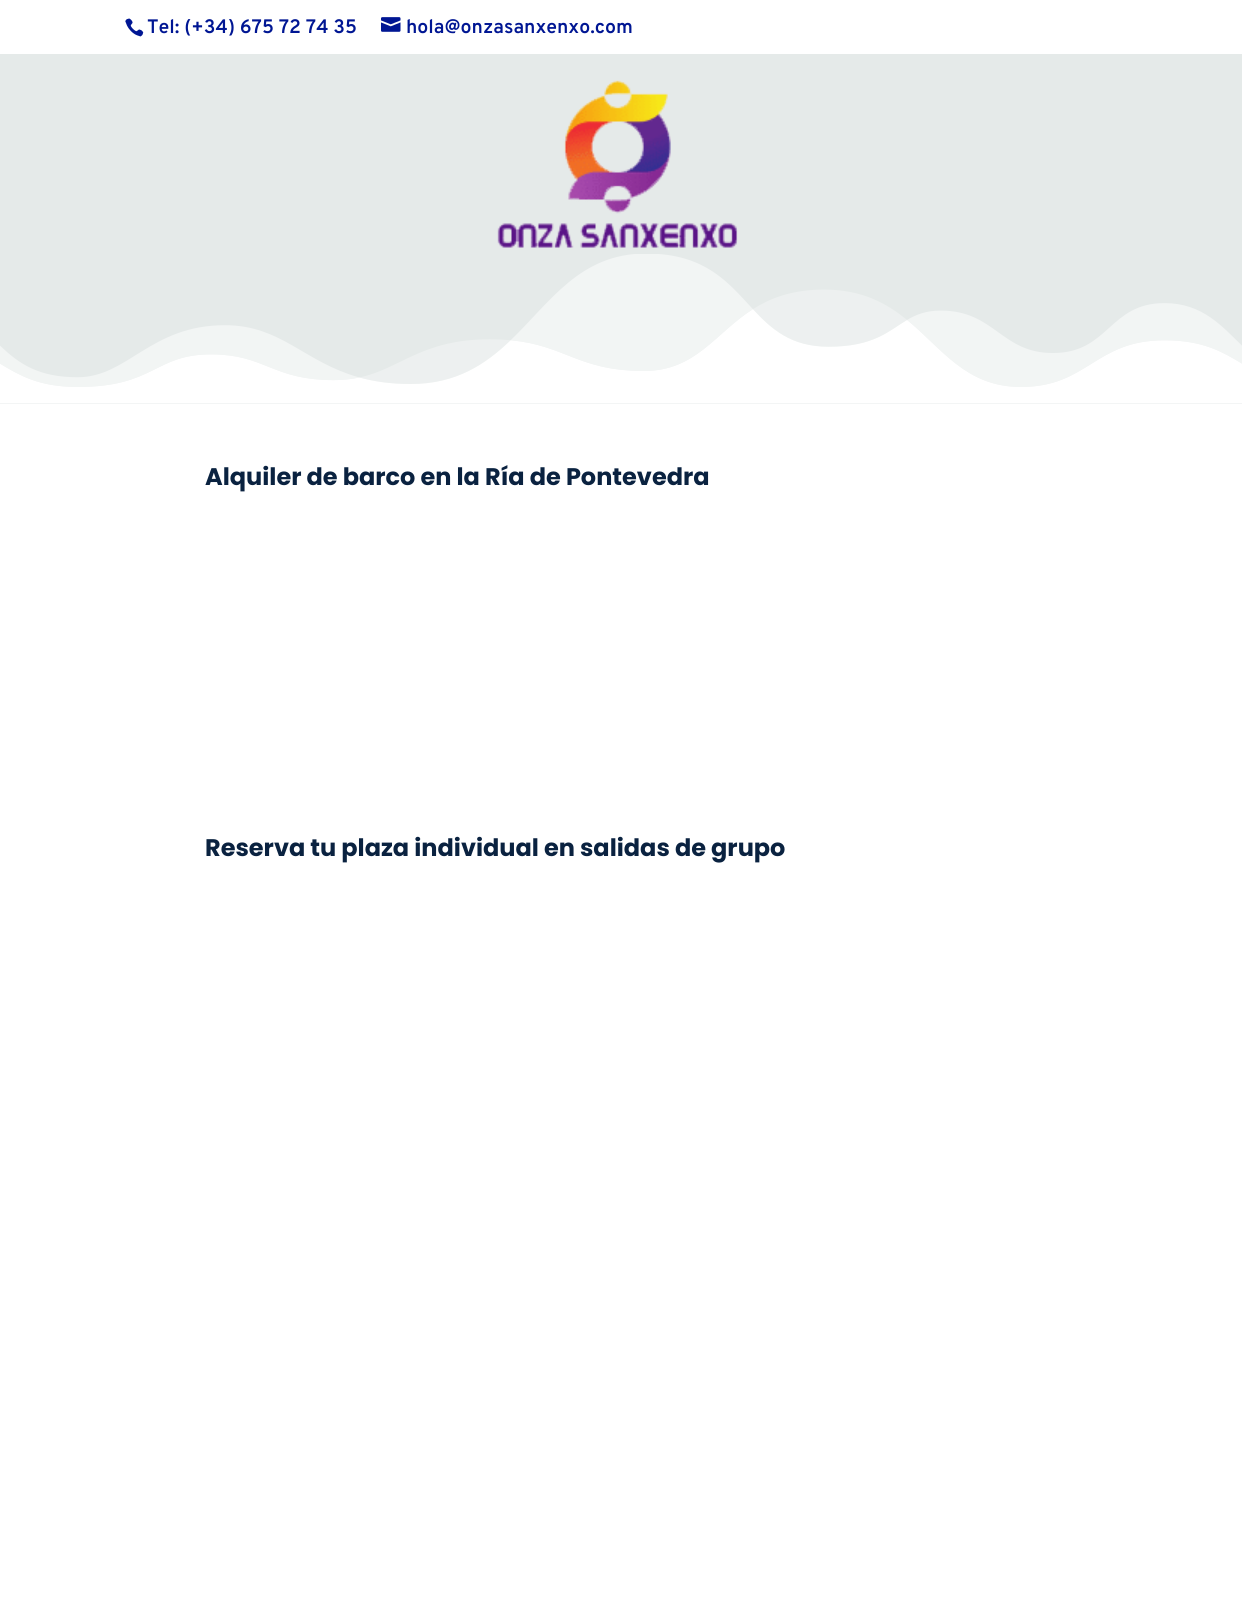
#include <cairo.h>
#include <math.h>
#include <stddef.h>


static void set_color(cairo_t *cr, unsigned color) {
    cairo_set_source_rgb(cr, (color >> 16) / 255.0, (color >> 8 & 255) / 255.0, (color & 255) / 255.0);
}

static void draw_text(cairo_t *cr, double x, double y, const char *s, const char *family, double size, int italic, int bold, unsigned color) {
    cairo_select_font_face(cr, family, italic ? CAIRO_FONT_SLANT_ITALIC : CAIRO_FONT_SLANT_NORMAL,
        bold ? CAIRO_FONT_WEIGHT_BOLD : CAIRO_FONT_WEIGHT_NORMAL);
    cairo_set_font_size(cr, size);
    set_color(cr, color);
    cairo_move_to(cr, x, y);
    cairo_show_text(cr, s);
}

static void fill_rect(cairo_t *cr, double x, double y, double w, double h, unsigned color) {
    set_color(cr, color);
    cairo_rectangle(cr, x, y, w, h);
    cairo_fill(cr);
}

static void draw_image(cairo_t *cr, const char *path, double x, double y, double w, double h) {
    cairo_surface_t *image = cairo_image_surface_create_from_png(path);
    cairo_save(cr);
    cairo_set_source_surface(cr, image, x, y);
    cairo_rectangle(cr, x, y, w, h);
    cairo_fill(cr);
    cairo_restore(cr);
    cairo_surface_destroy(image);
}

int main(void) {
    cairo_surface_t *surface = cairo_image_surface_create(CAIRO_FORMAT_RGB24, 1242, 1613);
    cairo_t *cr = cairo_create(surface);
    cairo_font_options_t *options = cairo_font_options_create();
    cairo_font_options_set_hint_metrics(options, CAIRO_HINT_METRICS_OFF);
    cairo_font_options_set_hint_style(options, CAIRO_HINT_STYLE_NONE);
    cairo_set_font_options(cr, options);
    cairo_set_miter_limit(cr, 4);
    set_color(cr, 0xFFFFFF);
    cairo_paint(cr);
    draw_image(cr, "assets/img1.png", 125, 18, 19, 19);
    draw_text(cr, 147, 33, "Tel: (+34) 675 72 74 35", "Overpass SemiBold", 19.5, 0, 0, 0x001693);
    draw_image(cr, "assets/img2.png", 381, 17, 20, 15);
    draw_text(cr, 406, 33, "hola@onzasanxenxo.com", "Overpass SemiBold", 19.5, 0, 0, 0x001693);
    fill_rect(cr, 0, 54, 1242, 350, 0xE5EAE9);
    draw_image(cr, "assets/img3.png", 497, 80, 241, 168);
    draw_image(cr, "assets/img4.png", 0, 254, 1242, 150);
    draw_text(cr, 205, 485, "Alquiler de barco en la Ría de Pontevedra", "Poppins", 24, 0, 1, 0x0A2240);
    draw_text(cr, 205, 856, "Reserva tu plaza individual en salidas de grupo", "Poppins", 24, 0, 1, 0x0A2240);
    cairo_surface_write_to_png(surface, "output.png");
    cairo_font_options_destroy(options);
    cairo_destroy(cr);
    cairo_surface_destroy(surface);
    return 0;
}
